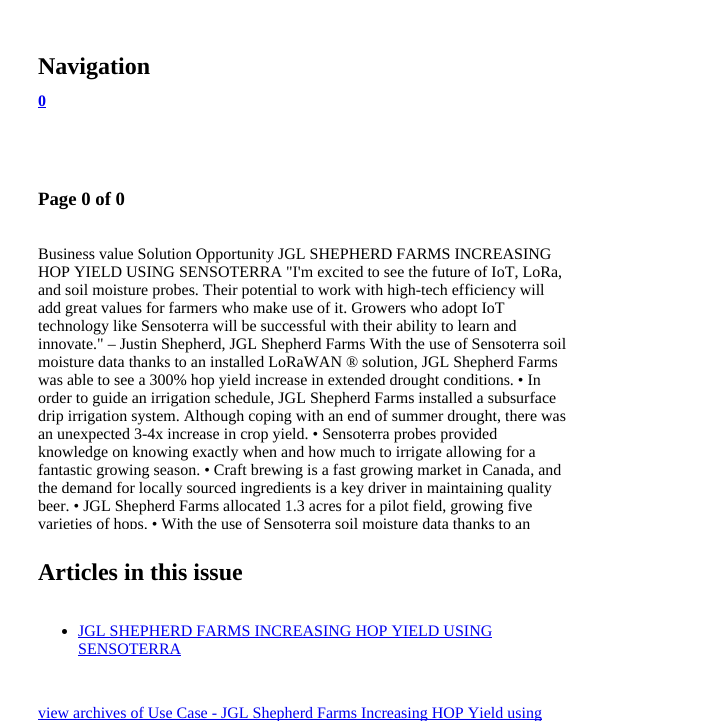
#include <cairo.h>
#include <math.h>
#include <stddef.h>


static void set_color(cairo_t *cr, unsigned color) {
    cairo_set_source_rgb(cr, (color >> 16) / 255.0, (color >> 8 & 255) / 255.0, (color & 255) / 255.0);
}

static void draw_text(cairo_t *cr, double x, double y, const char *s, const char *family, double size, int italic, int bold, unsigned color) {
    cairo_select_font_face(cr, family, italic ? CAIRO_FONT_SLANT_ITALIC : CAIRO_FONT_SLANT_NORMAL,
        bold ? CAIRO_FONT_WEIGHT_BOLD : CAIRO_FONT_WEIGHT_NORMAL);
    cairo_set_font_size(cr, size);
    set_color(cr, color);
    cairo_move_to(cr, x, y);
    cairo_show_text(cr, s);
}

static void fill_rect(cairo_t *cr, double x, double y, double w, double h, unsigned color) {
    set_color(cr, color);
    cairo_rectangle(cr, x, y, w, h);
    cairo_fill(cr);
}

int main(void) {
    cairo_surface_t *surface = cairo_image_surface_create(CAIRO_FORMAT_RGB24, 705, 721);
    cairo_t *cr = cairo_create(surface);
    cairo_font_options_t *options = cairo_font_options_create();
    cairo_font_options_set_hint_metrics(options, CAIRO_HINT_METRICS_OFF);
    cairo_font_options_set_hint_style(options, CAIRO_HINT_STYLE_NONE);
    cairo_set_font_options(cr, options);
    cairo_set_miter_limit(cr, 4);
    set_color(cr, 0xFFFFFF);
    cairo_paint(cr);
    draw_text(cr, 38, 74, "Navigation", "Liberation Serif", 24, 0, 1, 0x000000);
    draw_text(cr, 38, 106, "0", "Liberation Serif", 16, 0, 1, 0x0000EE);
    fill_rect(cr, 38, 107, 8, 1, 0x0000EE);
    draw_text(cr, 38, 205, "Page 0 of 0", "Liberation Serif", 18.75, 0, 1, 0x000000);
    draw_text(cr, 38, 259, "Business value Solution Opportunity JGL SHEPHERD FARMS INCREASING", "Liberation Serif", 16, 0, 0, 0x000000);
    draw_text(cr, 38, 277, "HOP YIELD USING SENSOTERRA \"I'm excited to see the future of IoT, LoRa,", "Liberation Serif", 16, 0, 0, 0x000000);
    draw_text(cr, 38, 295, "and soil moisture probes. Their potential to work with high-tech efficiency will", "Liberation Serif", 16, 0, 0, 0x000000);
    draw_text(cr, 38, 313, "add great values for farmers who make use of it. Growers who adopt IoT", "Liberation Serif", 16, 0, 0, 0x000000);
    draw_text(cr, 38, 331, "technology like Sensoterra will be successful with their ability to learn and", "Liberation Serif", 16, 0, 0, 0x000000);
    draw_text(cr, 38, 349, "innovate.\" – Justin Shepherd, JGL Shepherd Farms With the use of Sensoterra soil", "Liberation Serif", 16, 0, 0, 0x000000);
    draw_text(cr, 38, 367, "moisture data thanks to an installed LoRaWAN ® solution, JGL Shepherd Farms", "Liberation Serif", 16, 0, 0, 0x000000);
    draw_text(cr, 38, 385, "was able to see a 300% hop yield increase in extended drought conditions. • In", "Liberation Serif", 16, 0, 0, 0x000000);
    draw_text(cr, 38, 403, "order to guide an irrigation schedule, JGL Shepherd Farms installed a subsurface", "Liberation Serif", 16, 0, 0, 0x000000);
    draw_text(cr, 38, 421, "drip irrigation system. Although coping with an end of summer drought, there was", "Liberation Serif", 16, 0, 0, 0x000000);
    draw_text(cr, 38, 439, "an unexpected 3-4x increase in crop yield. • Sensoterra probes provided", "Liberation Serif", 16, 0, 0, 0x000000);
    draw_text(cr, 38, 457, "knowledge on knowing exactly when and how much to irrigate allowing for a", "Liberation Serif", 16, 0, 0, 0x000000);
    draw_text(cr, 38, 475, "fantastic growing season. • Craft brewing is a fast growing market in Canada, and", "Liberation Serif", 16, 0, 0, 0x000000);
    draw_text(cr, 38, 493, "the demand for locally sourced ingredients is a key driver in maintaining quality", "Liberation Serif", 16, 0, 0, 0x000000);
    draw_text(cr, 38, 511, "beer. • JGL Shepherd Farms allocated 1.3 acres for a pilot field, growing five", "Liberation Serif", 16, 0, 0, 0x000000);
    cairo_save(cr);
    cairo_rectangle(cr, 38, 229, 550, 300);
    cairo_clip(cr);
    draw_text(cr, 38, 529, "varieties of hops. • With the use of Sensoterra soil moisture data thanks to an", "Liberation Serif", 16, 0, 0, 0x000000);
    cairo_restore(cr);
    draw_text(cr, 38, 580, "Articles in this issue", "Liberation Serif", 24, 0, 1, 0x000000);
    cairo_new_path(cr);
    cairo_arc(cr, 64.5, 631.5, 2.5, 0, 2 * M_PI);
    cairo_fill(cr);
    draw_text(cr, 78, 636, "JGL SHEPHERD FARMS INCREASING HOP YIELD USING", "Liberation Serif", 16, 0, 0, 0x0000EE);
    fill_rect(cr, 78, 637, 414, 1, 0x0000EE);
    draw_text(cr, 78, 654, "SENSOTERRA", "Liberation Serif", 16, 0, 0, 0x0000EE);
    fill_rect(cr, 78, 655, 103, 1, 0x0000EE);
    fill_rect(cr, 38, 719, 504, 1, 0x0000EE);
    draw_text(cr, 38, 718, "view archives of Use Case - JGL Shepherd Farms Increasing HOP Yield using", "Liberation Serif", 16, 0, 0, 0x0000EE);
    cairo_surface_write_to_png(surface, "output.png");
    cairo_font_options_destroy(options);
    cairo_destroy(cr);
    cairo_surface_destroy(surface);
    return 0;
}
